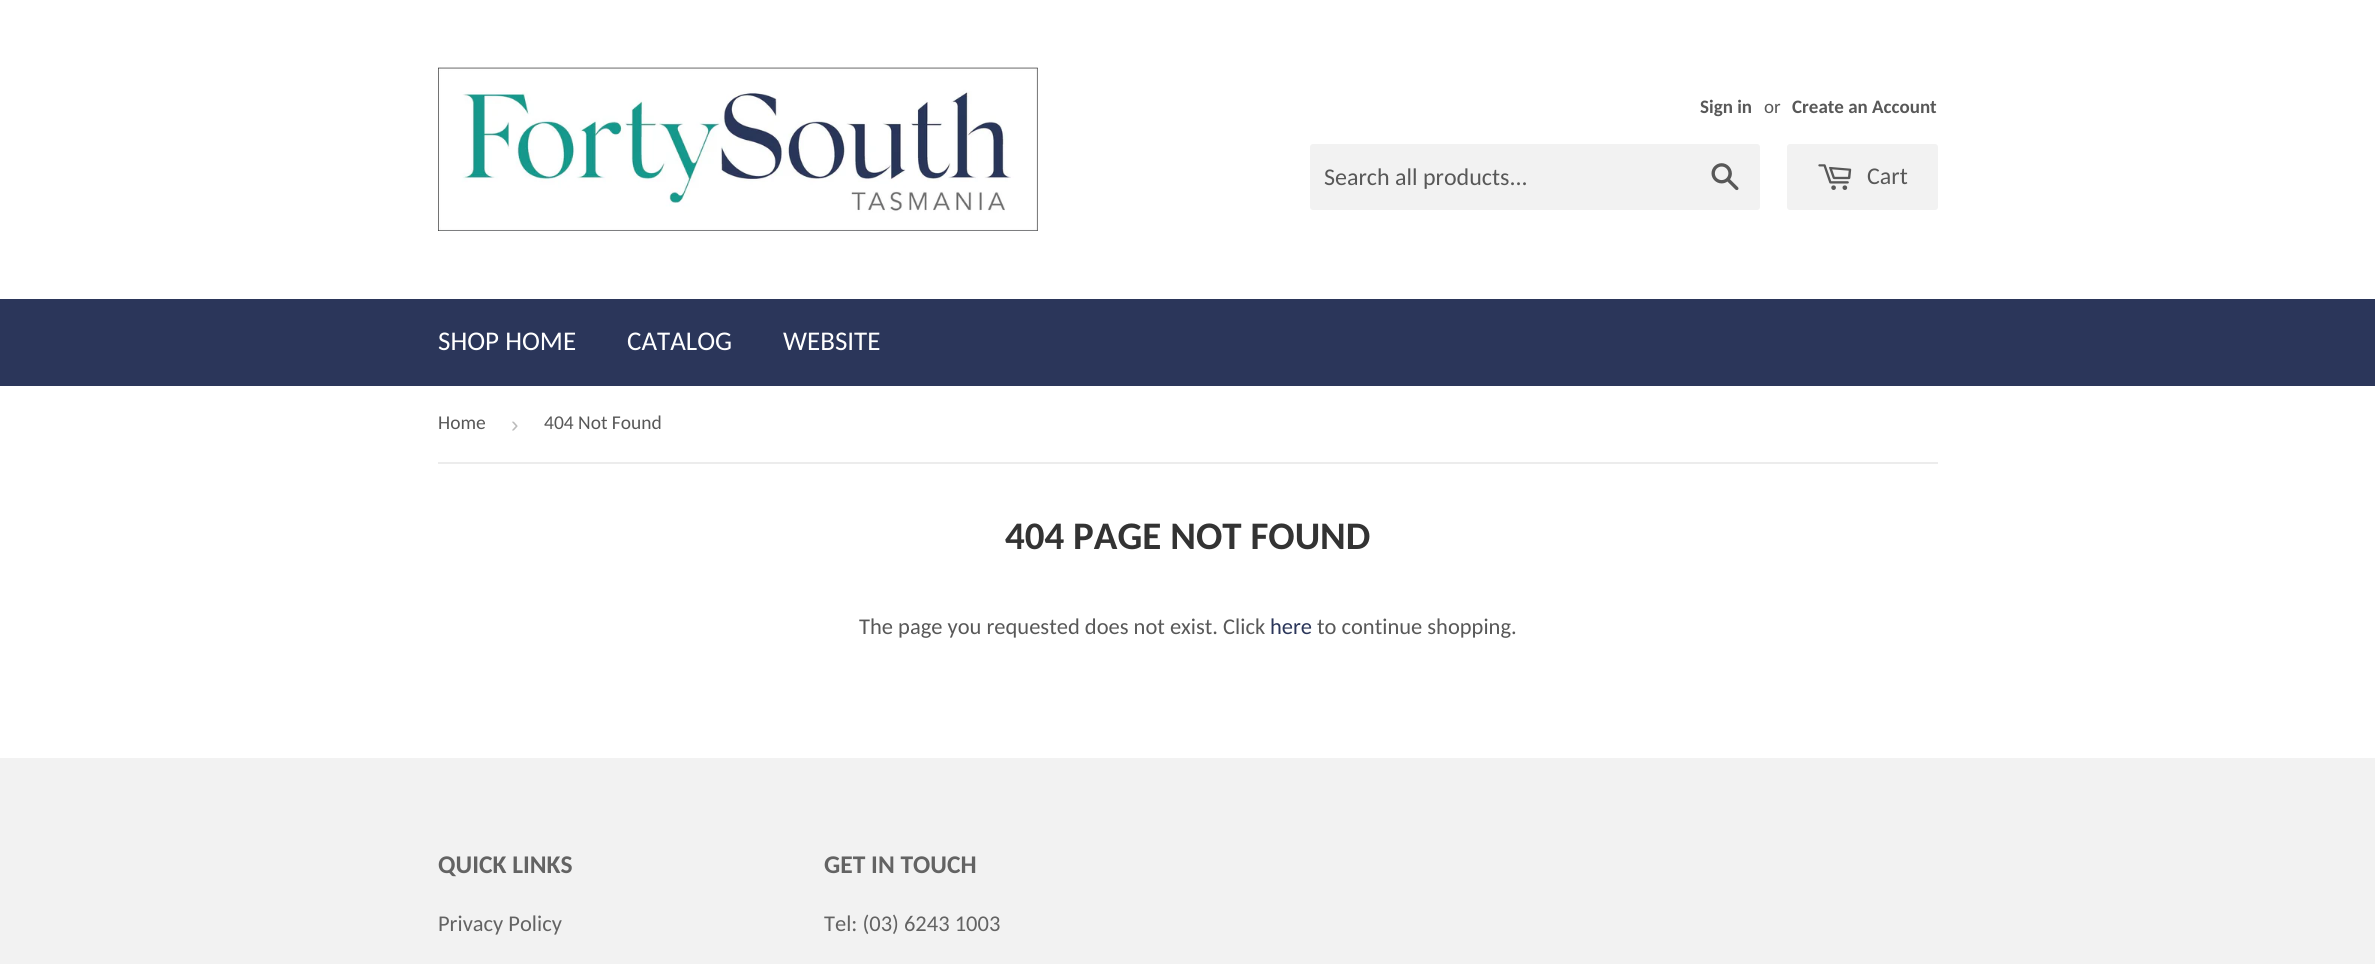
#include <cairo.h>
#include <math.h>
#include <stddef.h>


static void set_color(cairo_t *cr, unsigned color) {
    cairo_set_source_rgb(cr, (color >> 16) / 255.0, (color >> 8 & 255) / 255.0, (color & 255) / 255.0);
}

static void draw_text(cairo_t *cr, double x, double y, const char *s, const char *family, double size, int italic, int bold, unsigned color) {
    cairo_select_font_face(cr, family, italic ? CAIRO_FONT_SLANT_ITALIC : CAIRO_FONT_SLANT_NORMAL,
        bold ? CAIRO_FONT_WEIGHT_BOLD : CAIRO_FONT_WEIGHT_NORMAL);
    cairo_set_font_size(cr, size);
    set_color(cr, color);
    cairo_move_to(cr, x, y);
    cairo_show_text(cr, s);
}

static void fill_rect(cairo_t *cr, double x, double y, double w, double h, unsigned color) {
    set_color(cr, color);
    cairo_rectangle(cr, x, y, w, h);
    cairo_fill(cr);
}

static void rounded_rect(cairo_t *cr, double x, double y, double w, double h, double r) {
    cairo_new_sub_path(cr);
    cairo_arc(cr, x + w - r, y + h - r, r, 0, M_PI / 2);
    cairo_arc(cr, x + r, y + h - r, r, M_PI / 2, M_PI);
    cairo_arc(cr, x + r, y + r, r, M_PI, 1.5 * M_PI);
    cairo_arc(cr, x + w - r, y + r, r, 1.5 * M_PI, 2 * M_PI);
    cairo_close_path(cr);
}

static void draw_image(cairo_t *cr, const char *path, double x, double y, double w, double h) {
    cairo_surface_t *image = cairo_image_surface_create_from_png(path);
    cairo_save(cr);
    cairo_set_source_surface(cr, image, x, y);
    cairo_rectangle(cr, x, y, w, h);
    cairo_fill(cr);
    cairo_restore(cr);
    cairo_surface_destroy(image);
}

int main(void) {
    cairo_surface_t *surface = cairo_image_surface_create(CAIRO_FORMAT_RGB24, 2375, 964);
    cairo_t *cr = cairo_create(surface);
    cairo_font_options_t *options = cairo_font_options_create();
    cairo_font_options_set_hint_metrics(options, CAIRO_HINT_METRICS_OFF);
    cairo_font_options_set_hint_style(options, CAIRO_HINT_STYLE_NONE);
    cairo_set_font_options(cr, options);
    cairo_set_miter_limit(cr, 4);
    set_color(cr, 0xFFFFFF);
    cairo_paint(cr);
    draw_image(cr, "assets/img1.png", 438, 67, 600, 164);
    draw_text(cr, 1700, 113, "Sign in", "Carlito", 19, 0, 1, 0x585858);
    draw_text(cr, 1764, 113, "or", "Carlito", 19, 0, 0, 0x585858);
    draw_text(cr, 1792, 113, "Create an Account", "Carlito", 19, 0, 1, 0x585858);
    set_color(cr, 0xF2F2F2);
    rounded_rect(cr, 1310, 144, 450, 66, 3);
    cairo_fill(cr);
    draw_text(cr, 1324, 185, "Search all products...", "Carlito", 24, 0, 0, 0x585858);
    draw_image(cr, "assets/img2.png", 1711, 163, 28, 28);
    set_color(cr, 0xF2F2F2);
    rounded_rect(cr, 1787, 144, 151, 66, 3);
    cairo_fill(cr);
    draw_image(cr, "assets/img3.png", 1818, 164, 34, 26);
    draw_text(cr, 1867, 184, "Cart", "Carlito", 24, 0, 0, 0x585858);
    fill_rect(cr, 0, 299, 2375, 87, 0x2B365A);
    draw_text(cr, 438, 350, "SHOP HOME", "Carlito", 27, 0, 0, 0xFFFFFF);
    draw_text(cr, 627, 350, "CATALOG", "Carlito", 27, 0, 0, 0xFFFFFF);
    draw_text(cr, 783, 350, "WEBSITE", "Carlito", 27, 0, 0, 0xFFFFFF);
    fill_rect(cr, 438, 462, 1500, 2, 0xECECEC);
    draw_text(cr, 438, 429, "Home", "Carlito", 19.5, 0, 0, 0x585858);
    draw_text(cr, 511, 432, "›", "Liberation Sans", 22.5, 0, 0, 0xBBBBBB);
    draw_text(cr, 544, 429, "404 Not Found", "Carlito", 19.5, 0, 0, 0x585858);
    draw_text(cr, 1005, 549, "404 PAGE NOT FOUND", "Carlito", 39, 0, 1, 0x333333);
    draw_text(cr, 859, 634, "The page you requested does not exist. Click", "Carlito", 22.5, 0, 0, 0x585858);
    draw_text(cr, 1270, 634, "here", "Carlito", 22.5, 0, 0, 0x2B365A);
    draw_text(cr, 1317, 634, "to continue shopping.", "Carlito", 22.5, 0, 0, 0x585858);
    fill_rect(cr, 0, 758, 2375, 206, 0xF2F2F2);
    draw_text(cr, 438, 873, "QUICK LINKS", "Carlito", 25.5, 0, 1, 0x636363);
    draw_text(cr, 438, 931, "Privacy Policy", "Carlito", 22.5, 0, 0, 0x636363);
    draw_text(cr, 824, 873, "GET IN TOUCH", "Carlito", 25.5, 0, 1, 0x636363);
    draw_text(cr, 824, 931, "Tel: (03) 6243 1003", "Carlito", 22.5, 0, 0, 0x636363);
    cairo_surface_write_to_png(surface, "output.png");
    cairo_font_options_destroy(options);
    cairo_destroy(cr);
    cairo_surface_destroy(surface);
    return 0;
}
